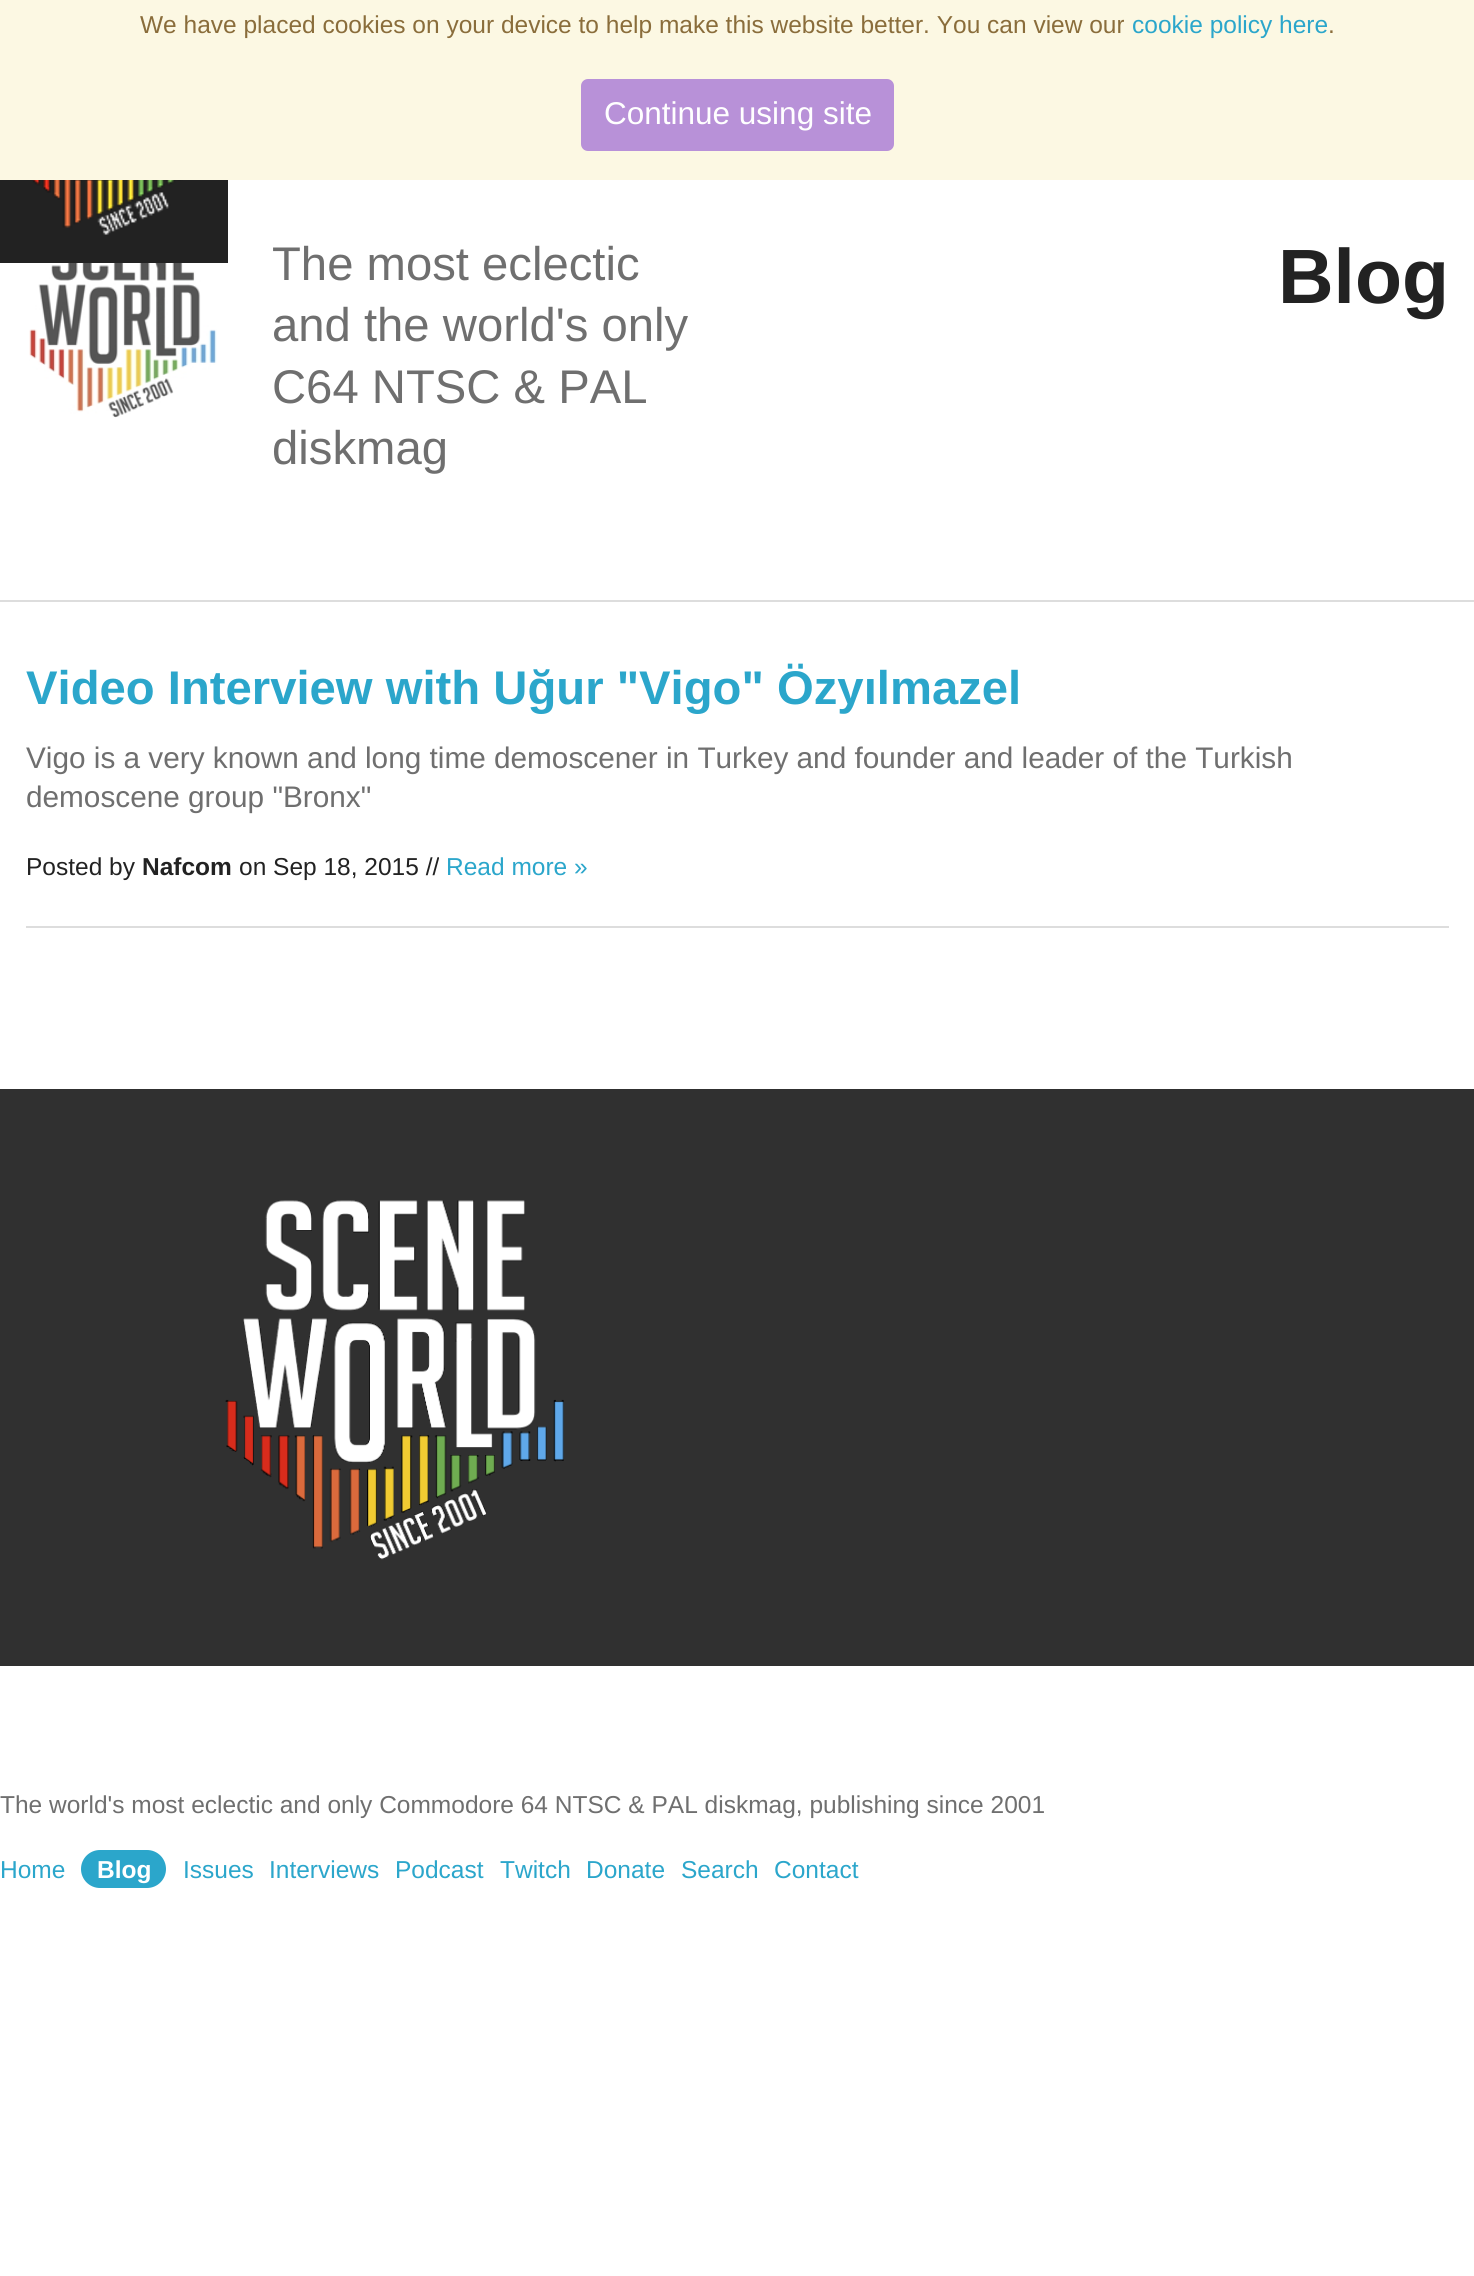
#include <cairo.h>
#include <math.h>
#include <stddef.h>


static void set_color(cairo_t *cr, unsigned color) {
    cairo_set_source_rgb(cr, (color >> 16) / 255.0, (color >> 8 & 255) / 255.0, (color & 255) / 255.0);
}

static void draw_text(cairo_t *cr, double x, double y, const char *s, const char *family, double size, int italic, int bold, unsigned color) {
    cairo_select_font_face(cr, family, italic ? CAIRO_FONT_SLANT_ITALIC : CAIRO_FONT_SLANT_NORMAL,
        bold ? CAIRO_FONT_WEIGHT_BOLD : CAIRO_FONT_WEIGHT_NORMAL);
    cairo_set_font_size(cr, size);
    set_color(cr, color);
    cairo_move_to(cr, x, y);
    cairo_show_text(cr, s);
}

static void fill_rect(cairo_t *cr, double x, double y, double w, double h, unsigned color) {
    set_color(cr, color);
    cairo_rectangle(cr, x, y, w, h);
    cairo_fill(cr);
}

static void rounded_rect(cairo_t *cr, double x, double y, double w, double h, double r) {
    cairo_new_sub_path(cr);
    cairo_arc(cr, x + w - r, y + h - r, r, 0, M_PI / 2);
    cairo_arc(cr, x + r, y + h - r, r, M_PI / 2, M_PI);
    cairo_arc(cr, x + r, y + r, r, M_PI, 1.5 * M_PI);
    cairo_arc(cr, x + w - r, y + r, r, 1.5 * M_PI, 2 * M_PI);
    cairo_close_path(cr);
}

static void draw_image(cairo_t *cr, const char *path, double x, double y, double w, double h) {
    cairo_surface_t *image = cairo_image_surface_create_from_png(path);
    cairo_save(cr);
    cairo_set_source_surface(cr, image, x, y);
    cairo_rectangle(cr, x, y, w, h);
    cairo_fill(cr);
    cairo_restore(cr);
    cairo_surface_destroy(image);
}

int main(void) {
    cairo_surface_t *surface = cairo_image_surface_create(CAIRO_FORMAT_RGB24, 1474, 2276);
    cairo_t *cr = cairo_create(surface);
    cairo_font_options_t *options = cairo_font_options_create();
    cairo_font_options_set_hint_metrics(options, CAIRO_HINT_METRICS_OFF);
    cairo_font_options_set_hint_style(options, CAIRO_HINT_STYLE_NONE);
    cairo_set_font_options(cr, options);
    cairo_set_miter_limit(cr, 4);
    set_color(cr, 0xFFFFFF);
    cairo_paint(cr);
    fill_rect(cr, 0, 0, 1474, 180, 0xFCF8E3);
    draw_text(cr, 140, 33, "We have placed cookies on your device to help make this website better. You can view our", "Liberation Sans", 24.5, 0, 0, 0x8A6D3B);
    draw_text(cr, 1132, 33, "cookie policy here", "Liberation Sans", 24.5, 0, 0, 0x2BA6CB);
    draw_text(cr, 1328, 33, ".", "Liberation Sans", 24.5, 0, 0, 0x8A6D3B);
    set_color(cr, 0xB891D8);
    rounded_rect(cr, 582, 80, 311, 70, 6);
    cairo_fill_preserve(cr);
    cairo_stroke(cr);
    draw_text(cr, 604, 124, "Continue using site", "Liberation Sans", 31.5, 0, 0, 0xFFFFFF);
    draw_image(cr, "assets/img1.png", 0, 180, 228, 83);
    draw_image(cr, "assets/img2.png", 29, 263, 188, 155);
    draw_text(cr, 272, 280, "The most eclectic", "Liberation Sans", 47.25, 0, 0, 0x6F6F6F);
    draw_text(cr, 272, 341, "and the world's only", "Liberation Sans", 47.25, 0, 0, 0x6F6F6F);
    draw_text(cr, 272, 403, "C64 NTSC & PAL", "Liberation Sans", 47.25, 0, 0, 0x6F6F6F);
    draw_text(cr, 272, 464, "diskmag", "Liberation Sans", 47.25, 0, 0, 0x6F6F6F);
    draw_text(cr, 1278, 303, "Blog", "Liberation Sans", 77, 0, 1, 0x222222);
    fill_rect(cr, 0, 600, 1474, 2, 0xDDDDDD);
    draw_text(cr, 26, 704, "Video Interview with Uğur \"Vigo\" Özyılmazel", "Liberation Sans", 47.25, 0, 1, 0x2BA6CB);
    draw_text(cr, 26, 768, "Vigo is a very known and long time demoscener in Turkey and founder and leader of the Turkish", "Liberation Sans", 29.75, 0, 0, 0x6F6F6F);
    draw_text(cr, 26, 807, "demoscene group \"Bronx\"", "Liberation Sans", 29.75, 0, 0, 0x6F6F6F);
    draw_text(cr, 26, 875, "Posted by", "Liberation Sans", 24.5, 0, 0, 0x222222);
    draw_text(cr, 142, 875, "Nafcom", "Liberation Sans", 24.5, 0, 1, 0x222222);
    draw_text(cr, 239, 875, "on Sep 18, 2015 //", "Liberation Sans", 24.5, 0, 0, 0x222222);
    draw_text(cr, 446, 875, "Read more »", "Liberation Sans", 24.5, 0, 0, 0x2BA6CB);
    fill_rect(cr, 26, 926, 1423, 2, 0xDDDDDD);
    fill_rect(cr, 0, 1089, 1474, 577, 0x303030);
    draw_image(cr, "assets/img3.png", 225, 1200, 339, 360);
    draw_text(cr, 0, 1813, "The world's most eclectic and only Commodore 64 NTSC & PAL diskmag, publishing since 2001", "Liberation Sans", 24.5, 0, 0, 0x6F6F6F);
    draw_text(cr, 0, 1878, "Home", "Liberation Sans", 24.5, 0, 0, 0x2BA6CB);
    rounded_rect(cr, 81, 1850, 85, 38, 19);
    cairo_fill(cr);
    draw_text(cr, 97, 1878, "Blog", "Liberation Sans", 24.5, 0, 1, 0xFFFFFF);
    draw_text(cr, 183, 1878, "Issues", "Liberation Sans", 24.5, 0, 0, 0x2BA6CB);
    draw_text(cr, 269, 1878, "Interviews", "Liberation Sans", 24.5, 0, 0, 0x2BA6CB);
    draw_text(cr, 395, 1878, "Podcast", "Liberation Sans", 24.5, 0, 0, 0x2BA6CB);
    draw_text(cr, 500, 1878, "Twitch", "Liberation Sans", 24.5, 0, 0, 0x2BA6CB);
    draw_text(cr, 586, 1878, "Donate", "Liberation Sans", 24.5, 0, 0, 0x2BA6CB);
    draw_text(cr, 681, 1878, "Search", "Liberation Sans", 24.5, 0, 0, 0x2BA6CB);
    draw_text(cr, 774, 1878, "Contact", "Liberation Sans", 24.5, 0, 0, 0x2BA6CB);
    cairo_surface_write_to_png(surface, "output.png");
    cairo_font_options_destroy(options);
    cairo_destroy(cr);
    cairo_surface_destroy(surface);
    return 0;
}
